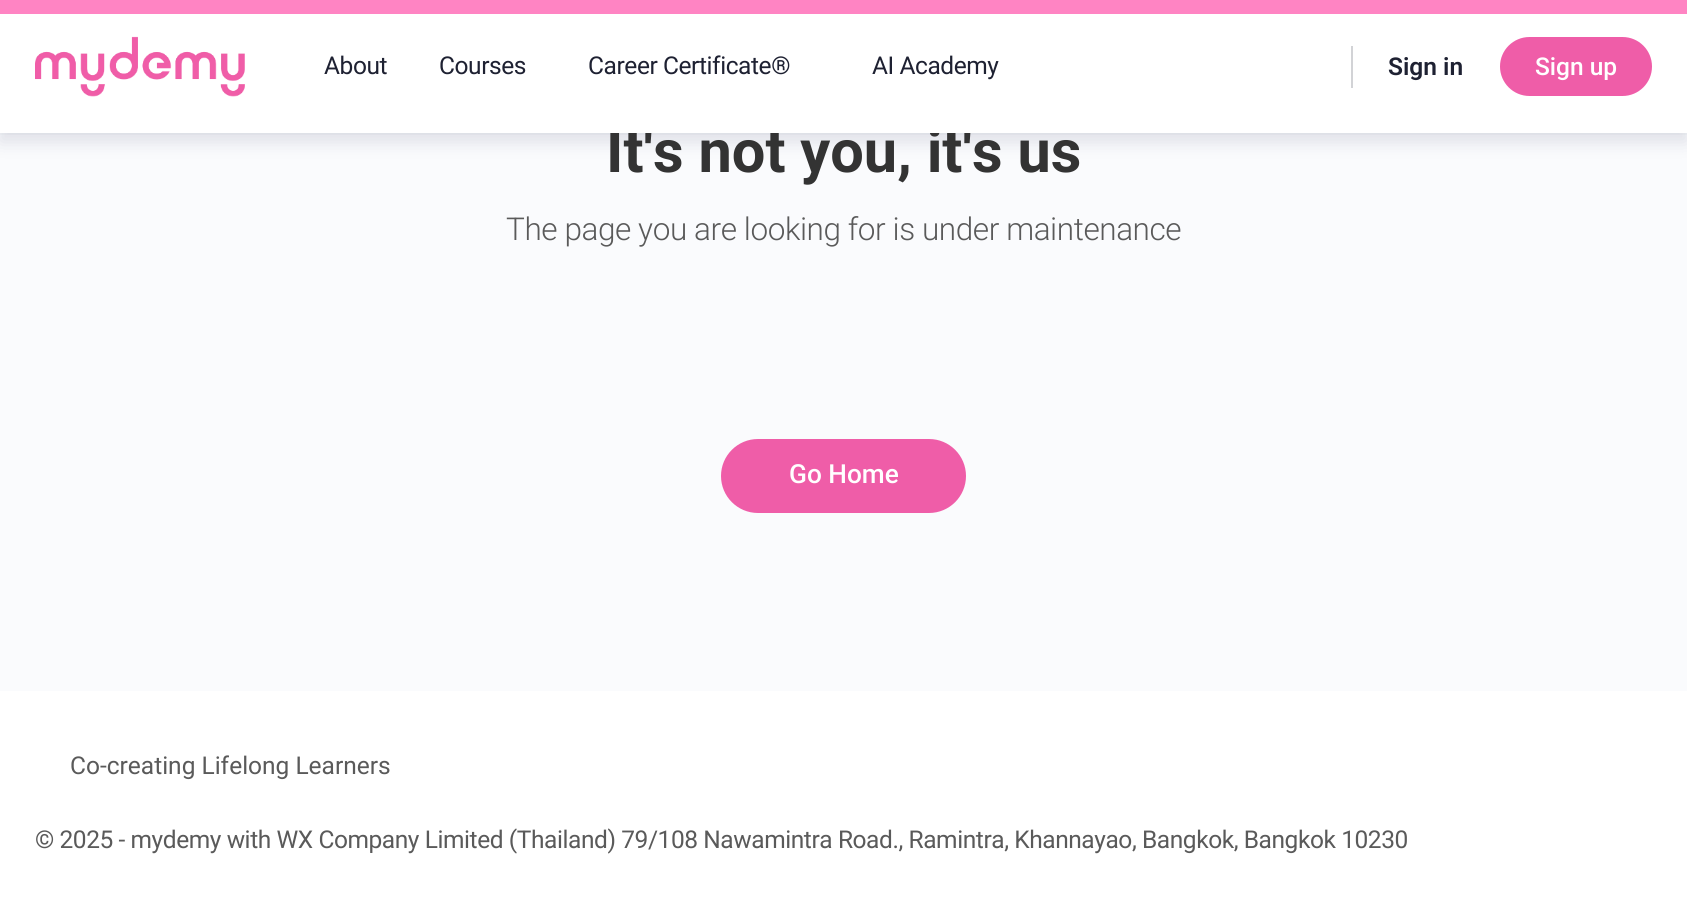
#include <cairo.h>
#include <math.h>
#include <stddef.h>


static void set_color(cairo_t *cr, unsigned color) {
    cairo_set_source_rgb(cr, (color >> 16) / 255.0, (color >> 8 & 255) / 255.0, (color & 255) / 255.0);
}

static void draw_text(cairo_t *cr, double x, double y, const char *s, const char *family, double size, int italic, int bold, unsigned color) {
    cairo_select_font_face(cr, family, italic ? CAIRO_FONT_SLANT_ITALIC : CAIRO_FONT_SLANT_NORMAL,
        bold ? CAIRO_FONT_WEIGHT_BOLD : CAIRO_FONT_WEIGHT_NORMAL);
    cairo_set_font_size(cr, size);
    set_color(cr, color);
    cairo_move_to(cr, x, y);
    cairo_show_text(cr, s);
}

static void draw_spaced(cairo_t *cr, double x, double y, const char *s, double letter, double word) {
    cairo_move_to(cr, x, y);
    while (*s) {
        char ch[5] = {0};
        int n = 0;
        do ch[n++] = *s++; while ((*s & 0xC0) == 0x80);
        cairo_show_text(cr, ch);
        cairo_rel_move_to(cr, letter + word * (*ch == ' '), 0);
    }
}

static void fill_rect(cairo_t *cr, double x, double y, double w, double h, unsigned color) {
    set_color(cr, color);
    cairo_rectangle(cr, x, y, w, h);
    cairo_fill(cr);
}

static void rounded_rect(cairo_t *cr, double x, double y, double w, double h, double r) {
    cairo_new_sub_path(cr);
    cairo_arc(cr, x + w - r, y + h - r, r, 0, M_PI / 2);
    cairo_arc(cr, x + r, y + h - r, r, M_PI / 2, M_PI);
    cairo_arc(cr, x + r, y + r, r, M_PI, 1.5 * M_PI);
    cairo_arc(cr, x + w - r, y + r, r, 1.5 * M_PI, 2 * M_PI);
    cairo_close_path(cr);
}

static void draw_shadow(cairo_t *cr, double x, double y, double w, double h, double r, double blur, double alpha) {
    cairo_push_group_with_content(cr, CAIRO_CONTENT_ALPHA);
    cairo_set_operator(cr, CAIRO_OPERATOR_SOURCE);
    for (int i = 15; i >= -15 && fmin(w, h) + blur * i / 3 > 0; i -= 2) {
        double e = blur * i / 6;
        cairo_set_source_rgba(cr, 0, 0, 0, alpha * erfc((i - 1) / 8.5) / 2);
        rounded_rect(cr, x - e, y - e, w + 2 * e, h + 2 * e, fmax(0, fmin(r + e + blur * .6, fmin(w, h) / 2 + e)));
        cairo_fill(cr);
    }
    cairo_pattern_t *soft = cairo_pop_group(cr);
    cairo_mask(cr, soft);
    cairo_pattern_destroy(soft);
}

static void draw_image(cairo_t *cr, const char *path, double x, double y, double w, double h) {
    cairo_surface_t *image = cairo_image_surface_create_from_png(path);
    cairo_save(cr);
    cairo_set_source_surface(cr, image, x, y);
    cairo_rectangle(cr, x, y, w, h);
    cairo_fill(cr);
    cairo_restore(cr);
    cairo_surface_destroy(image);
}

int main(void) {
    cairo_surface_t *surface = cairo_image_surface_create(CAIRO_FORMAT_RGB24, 1687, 917);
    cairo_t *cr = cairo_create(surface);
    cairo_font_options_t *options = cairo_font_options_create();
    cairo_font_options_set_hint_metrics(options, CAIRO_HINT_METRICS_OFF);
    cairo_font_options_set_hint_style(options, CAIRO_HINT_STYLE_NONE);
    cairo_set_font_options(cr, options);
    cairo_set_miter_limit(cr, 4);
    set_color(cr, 0xFAFBFD);
    cairo_paint(cr);
    set_color(cr, 0x41476C);
    draw_shadow(cr, 0, 9, 1687, 133, 0, 9, 0.15);
    fill_rect(cr, 0, 0, 1687, 14, 0xFF84C3);
    cairo_set_source_rgba(cr, 0.545, 0.553, 0.616, 0.05);
    cairo_rectangle(cr, 0, 133, 1687, 2);
    cairo_fill(cr);
    draw_text(cr, 606, 172, "It's not you, it's us", "Roboto", 59.5, 0, 1, 0x333333);
    fill_rect(cr, 0, 14, 1687, 119, 0xFFFFFF);
    draw_image(cr, "assets/img1.png", 35, 36, 210, 61);
    cairo_select_font_face(cr, "Roboto", CAIRO_FONT_SLANT_NORMAL, CAIRO_FONT_WEIGHT_NORMAL);
    cairo_set_font_size(cr, 24.5);
    set_color(cr, 0x1E2132);
    draw_spaced(cr, 324, 74, "About", -0.42, 0);
    draw_spaced(cr, 439, 74, "Courses", -0.42, 0);
    draw_spaced(cr, 588, 74, "Career Certificate®", -0.42, 0);
    draw_spaced(cr, 872, 74, "AI Academy", -0.42, 0);
    fill_rect(cr, 1351, 46, 2, 42, 0xD2D3D6);
    draw_text(cr, 1388, 75, "Sign in", "Roboto SemiBold", 24.5, 0, 0, 0x1E2132);
    set_color(cr, 0xEF5DA8);
    rounded_rect(cr, 1500, 37, 152, 59, 29.5);
    cairo_fill(cr);
    draw_text(cr, 1535, 75, "Sign up", "Roboto Medium", 24.5, 0, 0, 0xFFFFFF);
    cairo_select_font_face(cr, "Roboto Light", CAIRO_FONT_SLANT_NORMAL, CAIRO_FONT_WEIGHT_NORMAL);
    cairo_set_font_size(cr, 31.5);
    set_color(cr, 0x5A5A5A);
    draw_spaced(cr, 506, 240, "The page you are looking for is under maintenance", -0.42, 0);
    set_color(cr, 0xEF5DA8);
    rounded_rect(cr, 722, 440, 243, 72, 36);
    cairo_fill_preserve(cr);
    cairo_stroke(cr);
    draw_text(cr, 789, 483, "Go Home", "Roboto Medium", 26.25, 0, 0, 0xFFFFFF);
    fill_rect(cr, 0, 691, 1687, 226, 0xFFFFFF);
    draw_text(cr, 70, 774, "Co-creating Lifelong Learners", "Roboto", 24.5, 0, 0, 0x5A5A5A);
    draw_spaced(cr, 35, 848, "© 2025 - mydemy with WX Company Limited (Thailand) 79/108 Nawamintra Road., Ramintra, Khannayao, Bangkok, Bangkok 10230", -0.42, 0);
    cairo_surface_write_to_png(surface, "output.png");
    cairo_font_options_destroy(options);
    cairo_destroy(cr);
    cairo_surface_destroy(surface);
    return 0;
}
